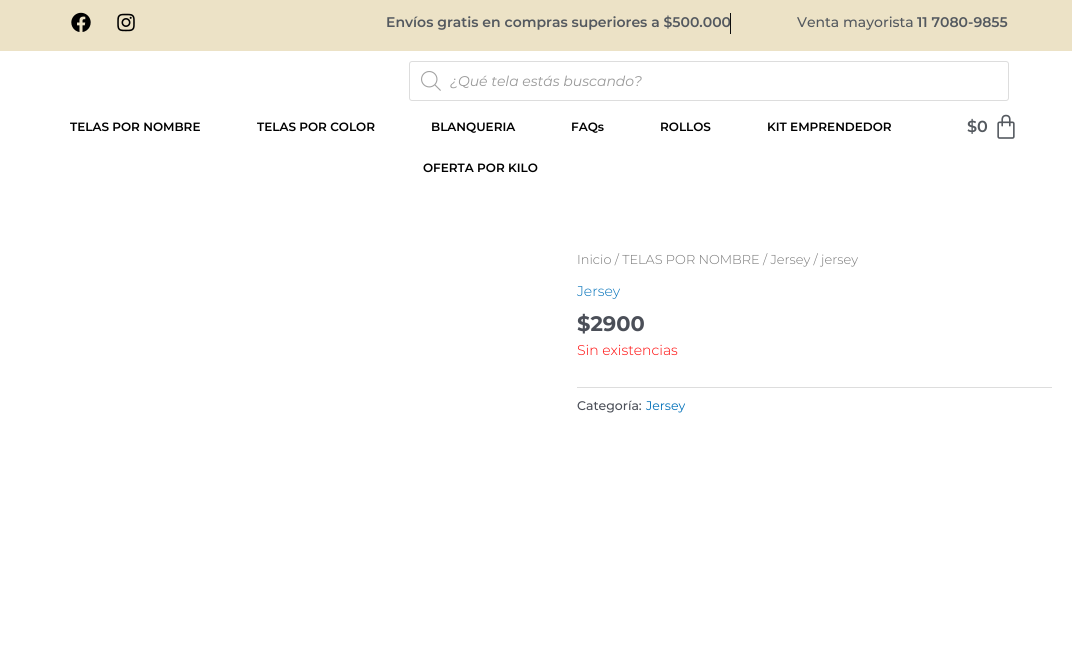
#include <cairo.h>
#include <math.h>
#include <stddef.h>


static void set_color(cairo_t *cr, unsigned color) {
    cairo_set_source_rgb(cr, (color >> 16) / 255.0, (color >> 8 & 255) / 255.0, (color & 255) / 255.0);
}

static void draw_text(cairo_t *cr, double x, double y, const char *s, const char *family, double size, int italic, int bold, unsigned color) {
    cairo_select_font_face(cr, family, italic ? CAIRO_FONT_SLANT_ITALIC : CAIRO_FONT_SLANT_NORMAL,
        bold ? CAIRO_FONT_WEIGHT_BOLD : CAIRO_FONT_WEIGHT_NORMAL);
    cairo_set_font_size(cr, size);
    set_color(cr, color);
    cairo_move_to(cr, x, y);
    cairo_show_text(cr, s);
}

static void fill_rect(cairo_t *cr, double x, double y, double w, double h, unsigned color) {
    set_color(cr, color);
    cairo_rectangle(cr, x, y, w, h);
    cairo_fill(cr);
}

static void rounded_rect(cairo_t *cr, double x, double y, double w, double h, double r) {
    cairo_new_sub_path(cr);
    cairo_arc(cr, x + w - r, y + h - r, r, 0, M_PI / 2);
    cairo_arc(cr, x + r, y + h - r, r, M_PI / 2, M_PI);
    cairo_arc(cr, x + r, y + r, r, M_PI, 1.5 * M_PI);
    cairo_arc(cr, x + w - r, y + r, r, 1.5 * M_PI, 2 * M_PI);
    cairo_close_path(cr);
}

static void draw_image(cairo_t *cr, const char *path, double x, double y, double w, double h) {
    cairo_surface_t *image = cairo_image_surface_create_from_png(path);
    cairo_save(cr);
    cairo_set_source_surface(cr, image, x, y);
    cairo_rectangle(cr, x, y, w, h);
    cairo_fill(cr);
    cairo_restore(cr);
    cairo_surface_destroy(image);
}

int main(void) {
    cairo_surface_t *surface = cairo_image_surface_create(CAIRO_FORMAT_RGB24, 1072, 672);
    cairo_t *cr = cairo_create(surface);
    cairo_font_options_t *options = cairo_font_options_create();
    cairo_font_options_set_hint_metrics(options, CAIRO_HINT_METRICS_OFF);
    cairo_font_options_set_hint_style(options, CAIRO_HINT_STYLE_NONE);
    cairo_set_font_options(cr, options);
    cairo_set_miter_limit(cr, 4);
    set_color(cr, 0xFFFFFF);
    cairo_paint(cr);
    fill_rect(cr, 0, 0, 1072, 51, 0xECE2C6);
    draw_image(cr, "assets/img1.png", 71, 12, 20, 20);
    draw_image(cr, "assets/img2.png", 117, 13, 18, 19);
    draw_text(cr, 386, 27, "Envíos gratis en compras superiores a $500.000", "Montserrat SemiBold", 14, 0, 0, 0x54595F);
    fill_rect(cr, 730, 13, 1, 21, 0x0D0D0D);
    draw_text(cr, 797, 27, "Venta mayorista", "Montserrat Medium", 14, 0, 0, 0x54595F);
    draw_text(cr, 917, 27, "11 7080-9855", "Montserrat SemiBold", 14, 0, 0, 0x54595F);
    rounded_rect(cr, 409.5, 61.5, 599, 39, 2.5);
    set_color(cr, 0xDDDDDD);
    cairo_set_line_width(cr, 1);
    cairo_stroke(cr);
    draw_image(cr, "assets/img3.png", 421, 71, 20, 20);
    draw_text(cr, 450, 86, "¿Qué tela estás buscando?", "Montserrat", 14, 1, 0, 0x999999);
    draw_text(cr, 70, 131, "TELAS POR NOMBRE", "Montserrat SemiBold", 12, 0, 0, 0x000000);
    draw_text(cr, 257, 131, "TELAS POR COLOR", "Montserrat SemiBold", 12, 0, 0, 0x000000);
    draw_text(cr, 431, 131, "BLANQUERIA", "Montserrat SemiBold", 12, 0, 0, 0x000000);
    draw_text(cr, 571, 131, "FAQs", "Montserrat SemiBold", 12, 0, 0, 0x000000);
    draw_text(cr, 660, 131, "ROLLOS", "Montserrat SemiBold", 12, 0, 0, 0x000000);
    draw_text(cr, 767, 131, "KIT EMPRENDEDOR", "Montserrat SemiBold", 12, 0, 0, 0x000000);
    draw_text(cr, 423, 172, "OFERTA POR KILO", "Montserrat SemiBold", 12, 0, 0, 0x000000);
    draw_text(cr, 967, 132, "$0", "Montserrat SemiBold", 16, 0, 0, 0x54595F);
    draw_image(cr, "assets/img4.png", 997, 114, 18, 25);
    draw_text(cr, 577, 264, "Inicio / TELAS POR NOMBRE / Jersey / jersey", "Montserrat Light", 12.9, 0, 0, 0x777777);
    draw_text(cr, 577, 296, "Jersey", "Montserrat Light", 14, 0, 0, 0x0170B9);
    draw_text(cr, 577, 331, "$2900", "Montserrat", 21, 0, 1, 0x4B4F58);
    draw_text(cr, 577, 355, "Sin existencias", "Montserrat Light", 14, 0, 0, 0xFF0000);
    fill_rect(cr, 577, 387, 475, 1, 0xDDDDDD);
    draw_text(cr, 577, 410, "Categoría:", "Montserrat Medium", 12.5, 0, 0, 0x4B4F58);
    draw_text(cr, 646, 410, "Jersey", "Montserrat", 12.5, 0, 0, 0x0170B9);
    cairo_surface_write_to_png(surface, "output.png");
    cairo_font_options_destroy(options);
    cairo_destroy(cr);
    cairo_surface_destroy(surface);
    return 0;
}
